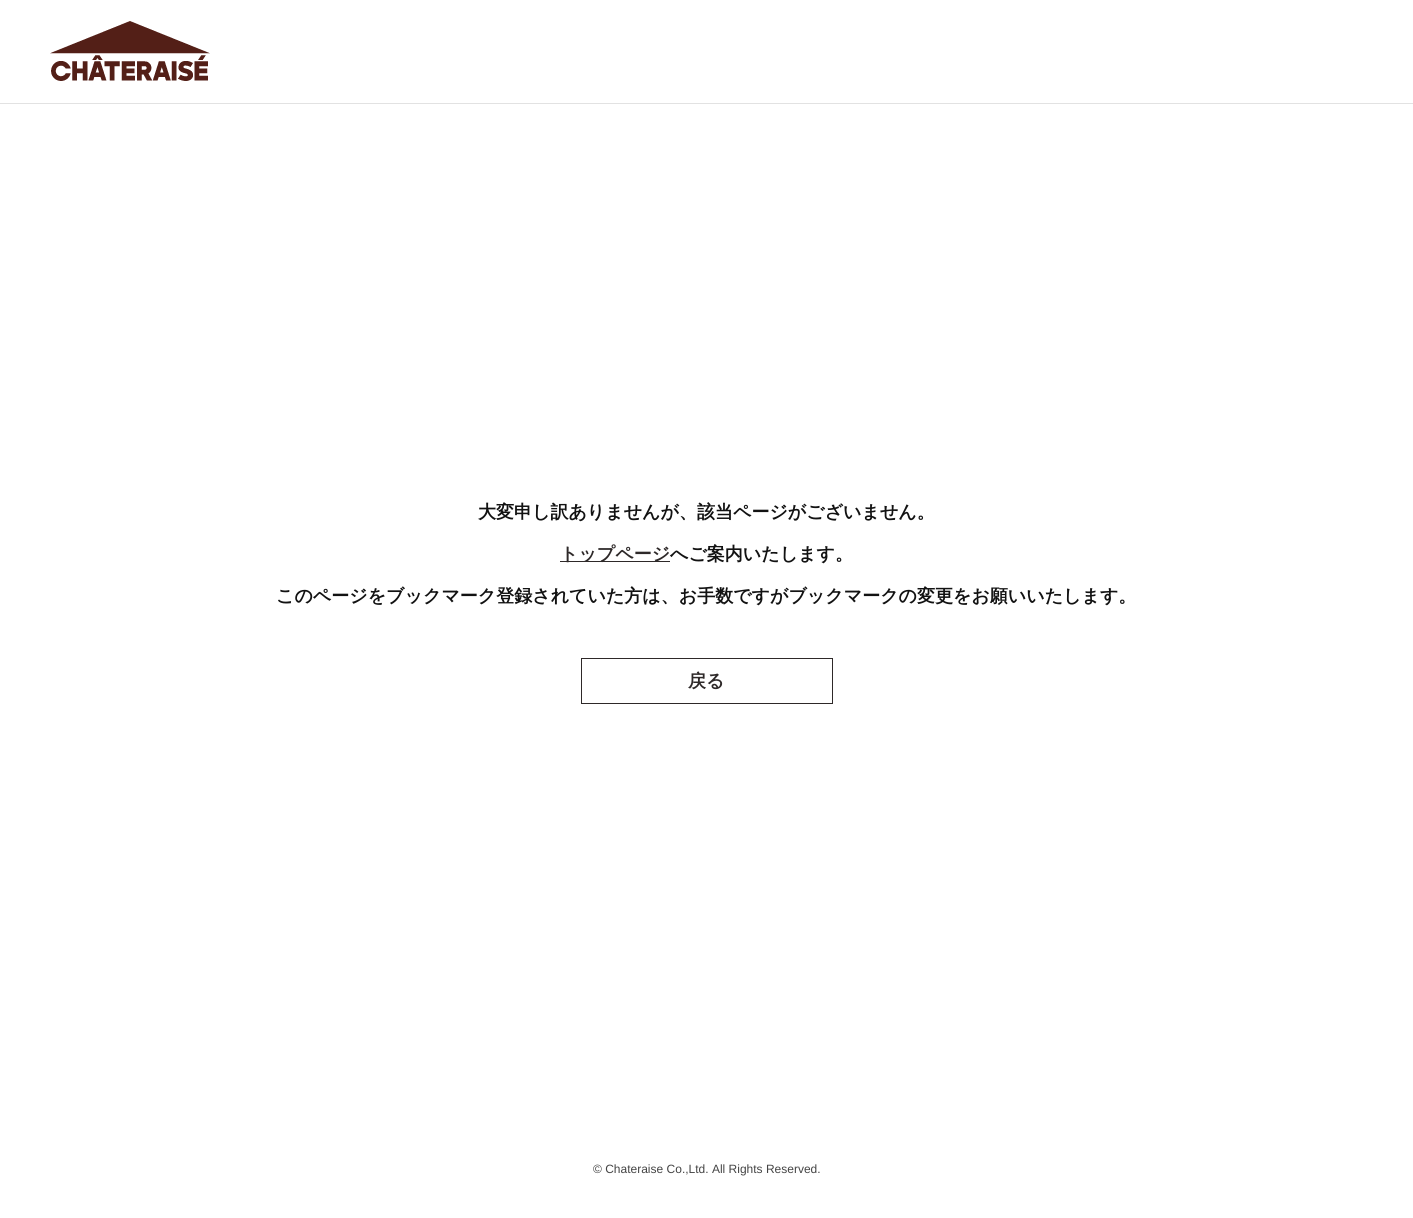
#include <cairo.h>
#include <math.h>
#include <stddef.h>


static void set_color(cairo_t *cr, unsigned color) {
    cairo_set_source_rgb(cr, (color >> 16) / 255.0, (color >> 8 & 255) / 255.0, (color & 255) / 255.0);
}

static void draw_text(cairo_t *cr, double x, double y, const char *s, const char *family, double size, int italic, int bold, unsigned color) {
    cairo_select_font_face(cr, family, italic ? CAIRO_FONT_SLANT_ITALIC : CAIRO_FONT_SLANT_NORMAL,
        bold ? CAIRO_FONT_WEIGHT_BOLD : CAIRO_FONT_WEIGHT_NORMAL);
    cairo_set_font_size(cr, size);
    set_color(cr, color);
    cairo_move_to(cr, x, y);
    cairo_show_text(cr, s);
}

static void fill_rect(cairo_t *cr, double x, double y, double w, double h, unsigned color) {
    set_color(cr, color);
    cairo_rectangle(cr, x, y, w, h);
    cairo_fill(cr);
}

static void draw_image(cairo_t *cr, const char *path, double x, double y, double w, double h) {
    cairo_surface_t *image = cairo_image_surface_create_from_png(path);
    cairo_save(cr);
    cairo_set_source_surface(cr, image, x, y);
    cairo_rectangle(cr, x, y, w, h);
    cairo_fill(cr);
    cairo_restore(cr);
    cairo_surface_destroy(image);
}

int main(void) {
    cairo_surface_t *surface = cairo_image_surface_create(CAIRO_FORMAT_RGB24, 1413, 1218);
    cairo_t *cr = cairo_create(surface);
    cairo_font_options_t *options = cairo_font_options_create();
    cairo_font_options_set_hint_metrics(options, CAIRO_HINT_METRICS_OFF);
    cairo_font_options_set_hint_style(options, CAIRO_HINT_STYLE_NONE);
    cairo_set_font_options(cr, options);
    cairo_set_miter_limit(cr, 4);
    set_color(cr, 0xFFFFFF);
    cairo_paint(cr);
    fill_rect(cr, 0, 103, 1413, 1, 0xE2E2E2);
    draw_image(cr, "assets/img1.png", 50, 21, 160, 60);
    draw_text(cr, 478, 518, "大変申し訳ありませんが、該当ページがございません。", "WenQuanYi Zen Hei", 18, 0, 1, 0x121212);
    fill_rect(cr, 560, 561, 110, 1, 0x2E2929);
    draw_text(cr, 560, 560, "トップページ", "WenQuanYi Zen Hei", 18, 0, 1, 0x2E2929);
    draw_text(cr, 670, 560, "へご案内いたします。", "WenQuanYi Zen Hei", 18, 0, 1, 0x121212);
    draw_text(cr, 276, 602, "このページをブックマーク登録されていた方は、お手数ですがブックマークの変更をお願いいたします。", "WenQuanYi Zen Hei", 18, 0, 1, 0x121212);
    cairo_rectangle(cr, 581.5, 658.5, 251, 45);
    set_color(cr, 0x2E2929);
    cairo_set_line_width(cr, 1);
    cairo_stroke(cr);
    draw_text(cr, 688, 687, "戻る", "WenQuanYi Zen Hei", 18, 0, 1, 0x2E2929);
    draw_text(cr, 593, 1173, "© Chateraise Co.,Ltd. All Rights Reserved.", "Liberation Sans", 12, 0, 0, 0x444444);
    cairo_surface_write_to_png(surface, "output.png");
    cairo_font_options_destroy(options);
    cairo_destroy(cr);
    cairo_surface_destroy(surface);
    return 0;
}
